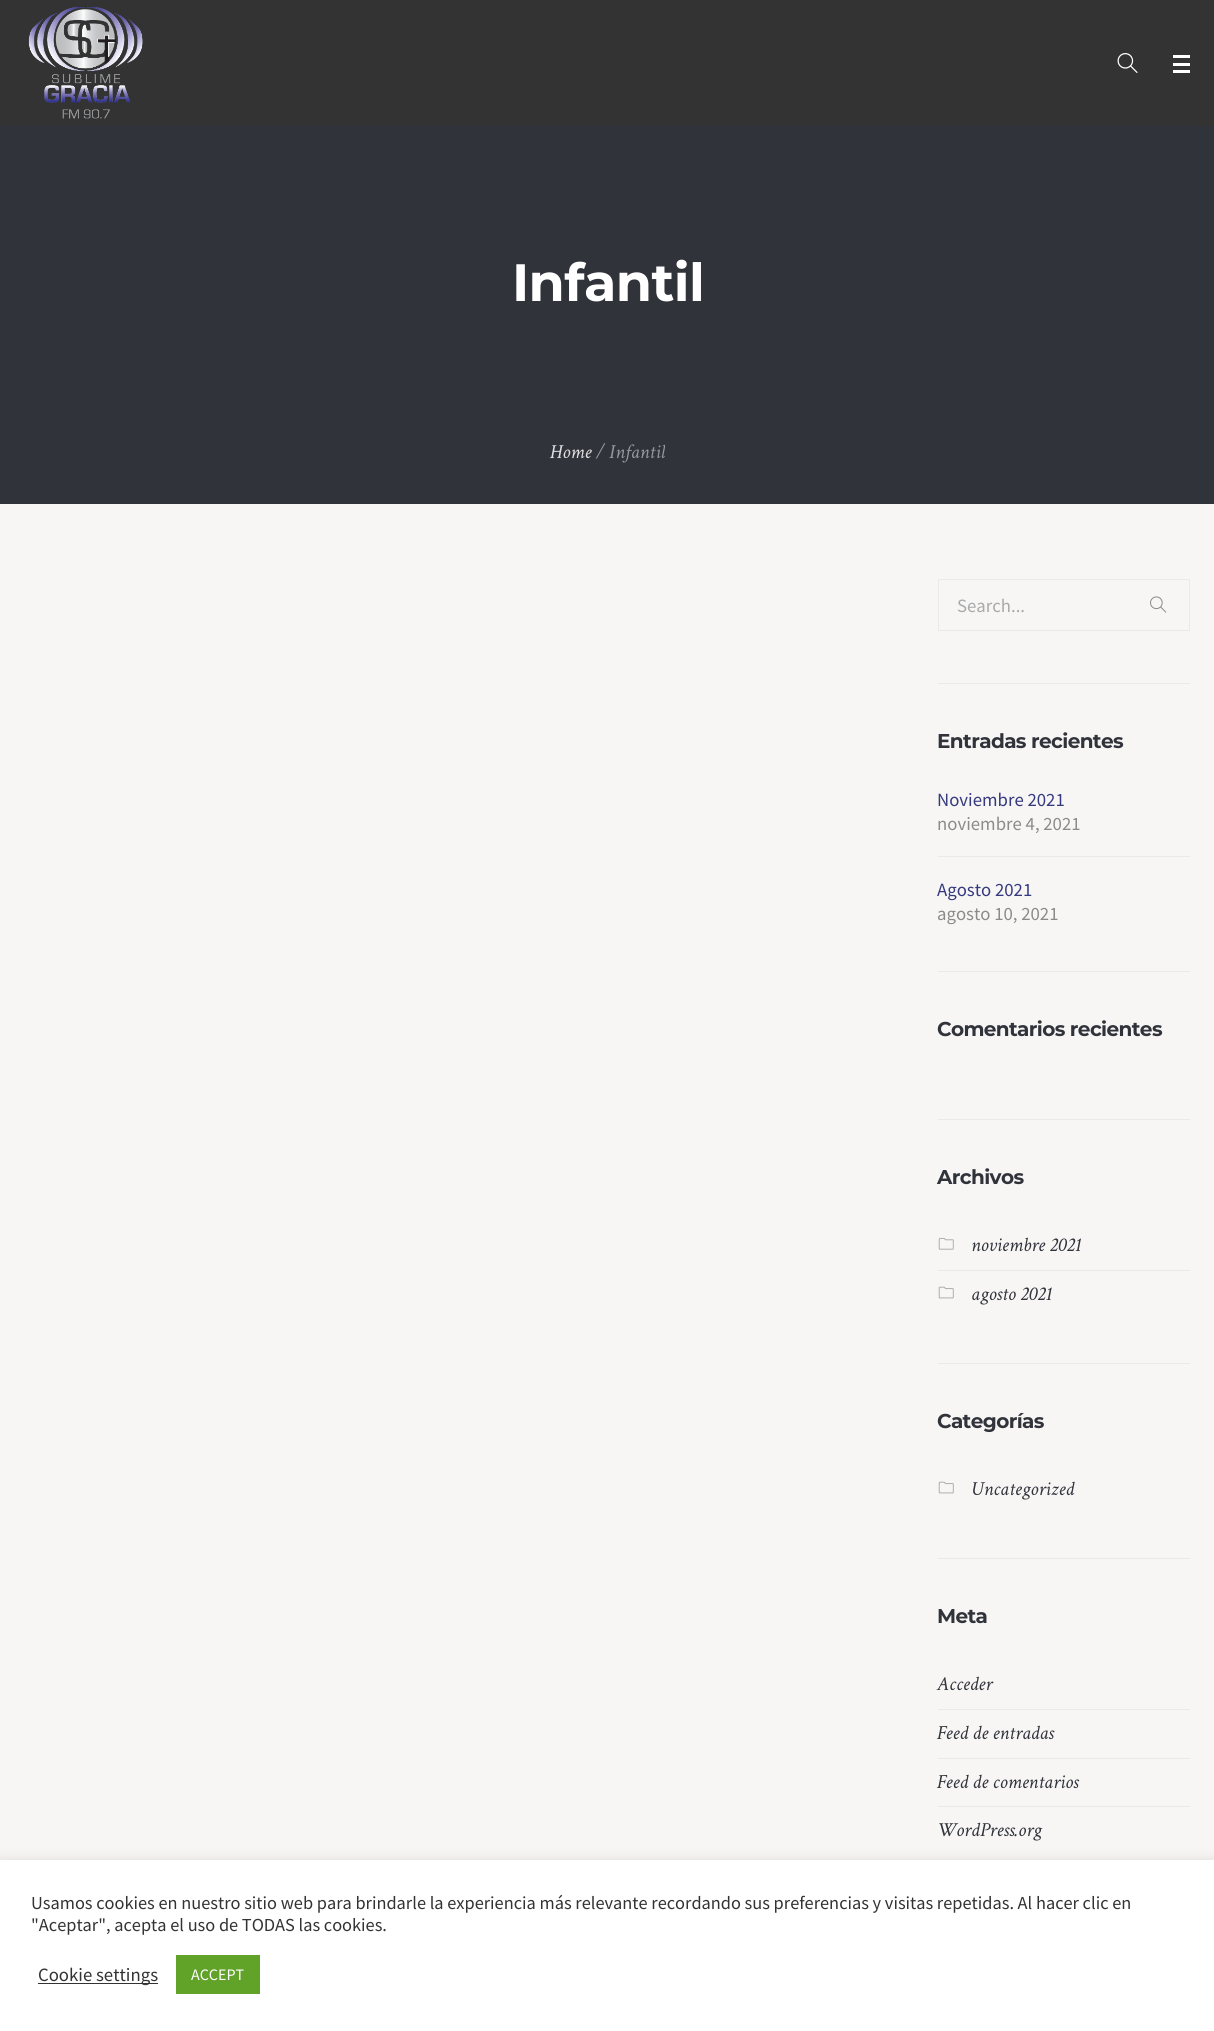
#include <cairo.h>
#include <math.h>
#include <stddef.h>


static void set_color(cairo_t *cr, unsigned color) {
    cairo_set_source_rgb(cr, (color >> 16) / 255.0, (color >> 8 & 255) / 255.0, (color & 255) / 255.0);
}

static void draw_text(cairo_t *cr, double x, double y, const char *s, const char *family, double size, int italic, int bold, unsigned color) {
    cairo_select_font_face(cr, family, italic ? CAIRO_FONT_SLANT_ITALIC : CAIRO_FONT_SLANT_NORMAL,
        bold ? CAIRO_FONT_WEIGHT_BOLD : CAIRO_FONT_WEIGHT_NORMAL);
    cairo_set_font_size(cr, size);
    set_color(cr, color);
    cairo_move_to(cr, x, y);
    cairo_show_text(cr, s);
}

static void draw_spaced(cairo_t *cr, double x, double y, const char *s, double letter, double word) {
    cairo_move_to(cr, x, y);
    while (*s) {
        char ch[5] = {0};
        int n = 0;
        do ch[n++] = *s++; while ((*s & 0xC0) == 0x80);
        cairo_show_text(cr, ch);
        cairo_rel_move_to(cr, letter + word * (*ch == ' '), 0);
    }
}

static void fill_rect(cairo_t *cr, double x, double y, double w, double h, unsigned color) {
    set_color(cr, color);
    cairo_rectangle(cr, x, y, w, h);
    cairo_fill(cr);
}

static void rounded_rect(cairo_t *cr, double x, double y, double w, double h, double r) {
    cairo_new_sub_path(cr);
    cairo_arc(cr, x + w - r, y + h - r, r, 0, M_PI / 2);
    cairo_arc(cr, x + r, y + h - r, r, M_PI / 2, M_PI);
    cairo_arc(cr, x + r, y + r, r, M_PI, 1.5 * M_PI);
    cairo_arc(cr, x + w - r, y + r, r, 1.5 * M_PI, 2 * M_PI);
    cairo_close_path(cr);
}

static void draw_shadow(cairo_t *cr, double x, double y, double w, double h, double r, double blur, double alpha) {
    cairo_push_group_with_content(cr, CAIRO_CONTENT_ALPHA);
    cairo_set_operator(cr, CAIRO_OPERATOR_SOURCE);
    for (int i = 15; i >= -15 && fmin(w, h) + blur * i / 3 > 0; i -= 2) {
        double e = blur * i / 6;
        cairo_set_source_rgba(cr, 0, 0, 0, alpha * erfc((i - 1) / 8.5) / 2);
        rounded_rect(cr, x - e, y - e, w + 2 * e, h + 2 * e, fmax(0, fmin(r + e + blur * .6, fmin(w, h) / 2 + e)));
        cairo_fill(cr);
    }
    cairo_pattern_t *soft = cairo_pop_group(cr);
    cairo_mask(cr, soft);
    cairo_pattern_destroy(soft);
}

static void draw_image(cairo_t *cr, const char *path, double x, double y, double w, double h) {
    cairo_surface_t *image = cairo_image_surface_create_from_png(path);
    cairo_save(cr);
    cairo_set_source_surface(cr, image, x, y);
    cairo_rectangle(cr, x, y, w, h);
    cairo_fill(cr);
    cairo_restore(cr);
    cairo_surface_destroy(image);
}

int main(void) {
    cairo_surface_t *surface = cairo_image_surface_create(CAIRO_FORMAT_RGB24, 1214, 2031);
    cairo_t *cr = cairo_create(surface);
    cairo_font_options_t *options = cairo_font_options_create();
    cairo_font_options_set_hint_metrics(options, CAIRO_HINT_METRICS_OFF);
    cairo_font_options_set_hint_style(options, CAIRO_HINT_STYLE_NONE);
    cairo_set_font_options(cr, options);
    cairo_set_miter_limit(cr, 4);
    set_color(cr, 0xF7F6F5);
    cairo_paint(cr);
    fill_rect(cr, 0, 0, 1214, 126, 0x333333);
    draw_image(cr, "assets/img1.png", 28, 7, 115, 112);
    draw_image(cr, "assets/img2.png", 1117, 53, 21, 20);
    fill_rect(cr, 1173, 55, 17, 3, 0xFFFFFF);
    fill_rect(cr, 1173, 63, 17, 3, 0xFFFFFF);
    fill_rect(cr, 1173, 70, 17, 3, 0xFFFFFF);
    fill_rect(cr, 0, 126, 1214, 378, 0x31333B);
    cairo_select_font_face(cr, "Montserrat", CAIRO_FONT_SLANT_NORMAL, CAIRO_FONT_WEIGHT_BOLD);
    cairo_set_font_size(cr, 52.5);
    set_color(cr, 0xFFFFFF);
    draw_spaced(cr, 512, 301, "Infantil", -0.6, 0);
    draw_text(cr, 550, 458, "Home", "Crimson Text", 20, 1, 0, 0xE1E1E1);
    draw_text(cr, 596, 458, "/", "Crimson Text", 20, 1, 0, 0x98999D);
    cairo_save(cr);
    cairo_rectangle(cr, 550, 439, 115, 65);
    cairo_clip(cr);
    draw_text(cr, 609, 458, "Infantil", "Crimson Text", 20, 1, 0, 0x98999D);
    cairo_restore(cr);
    fill_rect(cr, 938, 683, 252, 1, 0xEAEAEA);
    cairo_rectangle(cr, 938.5, 579.5, 251, 51);
    cairo_set_line_width(cr, 1);
    cairo_stroke(cr);
    draw_text(cr, 957, 612, "Search...", "Source Sans Pro", 18.75, 0, 0, 0xA8A9AB);
    draw_image(cr, "assets/img3.png", 1150, 596, 17, 17);
    fill_rect(cr, 938, 971, 252, 1, 0xEAEAEA);
    cairo_select_font_face(cr, "Montserrat", CAIRO_FONT_SLANT_NORMAL, CAIRO_FONT_WEIGHT_BOLD);
    cairo_set_font_size(cr, 20);
    set_color(cr, 0x31333B);
    draw_spaced(cr, 937, 748, "Entradas recientes", -0.6, 0);
    draw_text(cr, 937, 806, "Noviembre 2021", "Source Sans Pro", 18.75, 0, 0, 0x353A7E);
    draw_text(cr, 937, 830, "noviembre 4, 2021", "Source Sans Pro", 18.75, 0, 0, 0x8B8B8B);
    fill_rect(cr, 938, 856, 252, 1, 0xEAEAEA);
    draw_text(cr, 937, 896, "Agosto 2021", "Source Sans Pro", 18.75, 0, 0, 0x353A7E);
    draw_text(cr, 937, 920, "agosto 10, 2021", "Source Sans Pro", 18.75, 0, 0, 0x8B8B8B);
    fill_rect(cr, 938, 1119, 252, 1, 0xEAEAEA);
    cairo_select_font_face(cr, "Montserrat", CAIRO_FONT_SLANT_NORMAL, CAIRO_FONT_WEIGHT_BOLD);
    cairo_set_font_size(cr, 20);
    set_color(cr, 0x31333B);
    draw_spaced(cr, 937, 1036, "Comentarios recientes", -0.6, 0);
    fill_rect(cr, 938, 1363, 252, 1, 0xEAEAEA);
    set_color(cr, 0x31333B);
    draw_spaced(cr, 937, 1184, "Archivos", -0.6, 0);
    draw_image(cr, "assets/img4.png", 938, 1237, 16, 13);
    draw_text(cr, 971, 1251, "noviembre 2021", "Crimson Text", 20, 1, 0, 0x31333B);
    fill_rect(cr, 938, 1270, 252, 1, 0xEAEAEA);
    draw_image(cr, "assets/img5.png", 938, 1286, 16, 13);
    draw_text(cr, 971, 1300, "agosto 2021", "Crimson Text", 20, 1, 0, 0x31333B);
    fill_rect(cr, 938, 1558, 252, 1, 0xEAEAEA);
    cairo_select_font_face(cr, "Montserrat", CAIRO_FONT_SLANT_NORMAL, CAIRO_FONT_WEIGHT_BOLD);
    set_color(cr, 0x31333B);
    draw_spaced(cr, 937, 1428, "Categorías", -0.6, 0);
    draw_image(cr, "assets/img5.png", 938, 1481, 16, 13);
    draw_text(cr, 971, 1495, "Uncategorized", "Crimson Text", 20, 1, 0, 0x31333B);
    cairo_select_font_face(cr, "Montserrat", CAIRO_FONT_SLANT_NORMAL, CAIRO_FONT_WEIGHT_BOLD);
    draw_spaced(cr, 937, 1623, "Meta", -0.6, 0);
    draw_text(cr, 937, 1690, "Acceder", "Crimson Text", 20, 1, 0, 0x31333B);
    fill_rect(cr, 938, 1709, 252, 1, 0xEAEAEA);
    draw_text(cr, 937, 1739, "Feed de entradas", "Crimson Text", 20, 1, 0, 0x31333B);
    fill_rect(cr, 938, 1758, 252, 1, 0xEAEAEA);
    draw_text(cr, 937, 1788, "Feed de comentarios", "Crimson Text", 20, 1, 0, 0x31333B);
    fill_rect(cr, 938, 1806, 252, 1, 0xEAEAEA);
    draw_text(cr, 937, 1836, "WordPress.org", "Crimson Text", 20, 1, 0, 0x31333B);
    set_color(cr, 0xACABAB);
    draw_shadow(cr, 0, 1859, 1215, 171, 0, 6, 0.3);
    fill_rect(cr, 0, 1860, 1214, 171, 0xFFFFFF);
    draw_text(cr, 31, 1909, "Usamos cookies en nuestro sitio web para brindarle la experiencia más relevante recordando sus preferencias y visitas repetidas. Al hacer clic en", "Source Sans Pro", 18.33, 0, 0, 0x333333);
    draw_text(cr, 31, 1931, "\"Aceptar\", acepta el uso de TODAS las cookies.", "Source Sans Pro", 18.33, 0, 0, 0x333333);
    fill_rect(cr, 38, 1983, 120, 1, 0x333333);
    draw_text(cr, 38, 1981, "Cookie settings", "Source Sans Pro", 18.75, 0, 0, 0x333333);
    fill_rect(cr, 176, 1955, 84, 39, 0x61A229);
    draw_text(cr, 191, 1980, "ACCEPT", "Source Sans Pro", 16, 0, 0, 0xFFFFFF);
    cairo_surface_write_to_png(surface, "output.png");
    cairo_font_options_destroy(options);
    cairo_destroy(cr);
    cairo_surface_destroy(surface);
    return 0;
}
